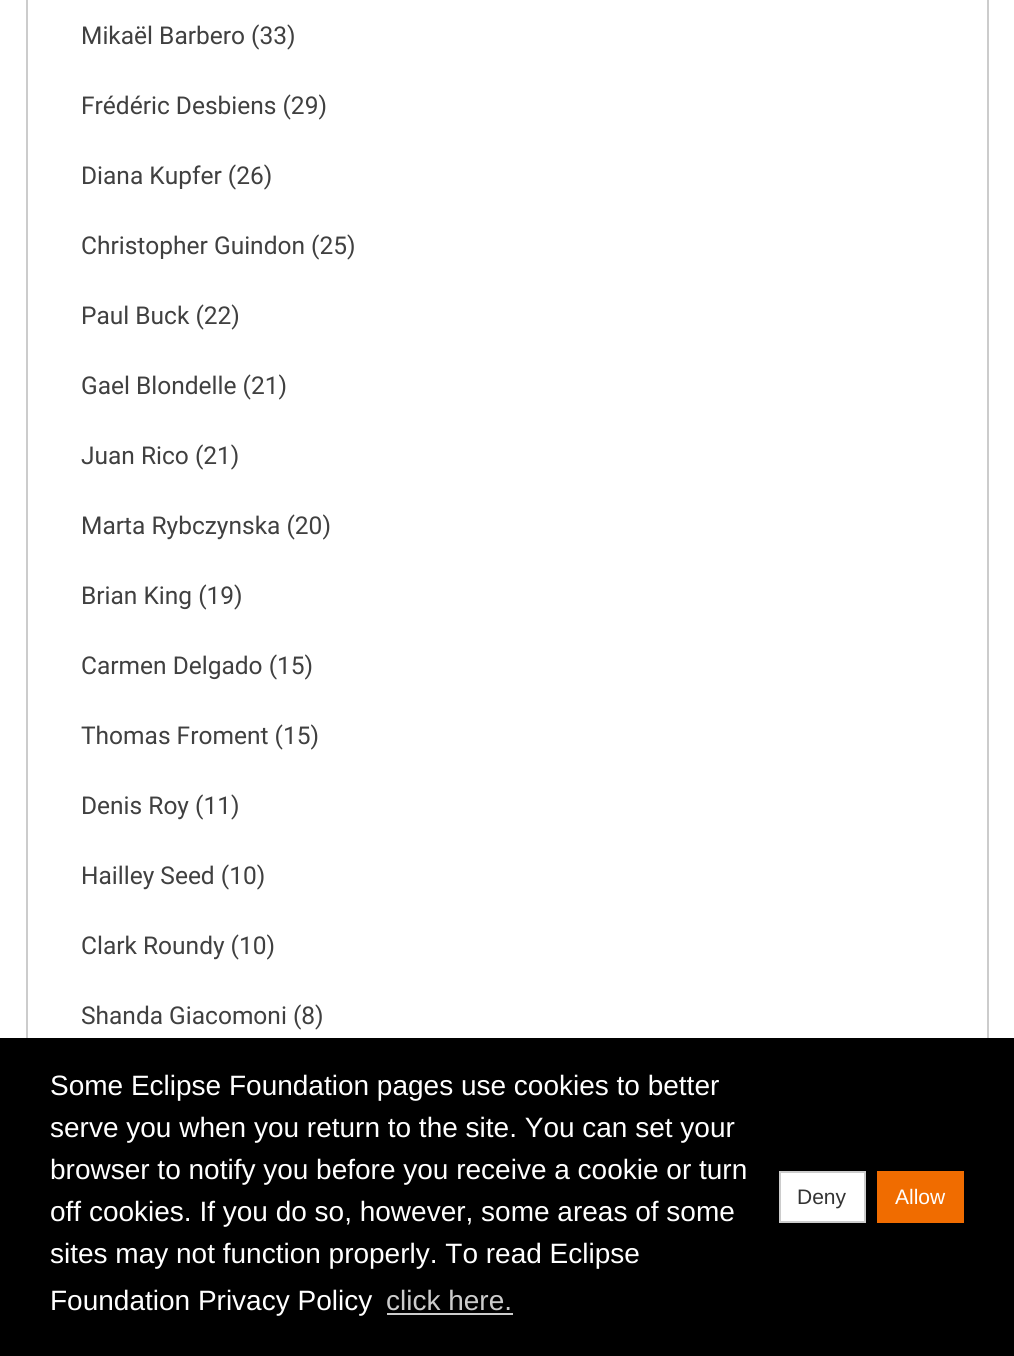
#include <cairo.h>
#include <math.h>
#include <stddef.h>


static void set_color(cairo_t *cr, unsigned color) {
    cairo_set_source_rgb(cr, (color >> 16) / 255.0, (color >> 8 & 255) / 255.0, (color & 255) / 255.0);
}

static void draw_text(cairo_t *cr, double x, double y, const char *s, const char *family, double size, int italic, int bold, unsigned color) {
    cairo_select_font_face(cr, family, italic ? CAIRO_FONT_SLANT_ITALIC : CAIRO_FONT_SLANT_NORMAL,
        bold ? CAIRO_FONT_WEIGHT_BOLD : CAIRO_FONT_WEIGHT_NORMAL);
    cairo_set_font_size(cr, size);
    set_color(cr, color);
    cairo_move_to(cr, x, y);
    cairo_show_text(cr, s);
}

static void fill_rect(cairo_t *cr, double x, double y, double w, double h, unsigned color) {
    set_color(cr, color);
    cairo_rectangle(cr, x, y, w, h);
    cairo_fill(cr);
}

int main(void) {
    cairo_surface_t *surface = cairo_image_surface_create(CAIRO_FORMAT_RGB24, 1014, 1356);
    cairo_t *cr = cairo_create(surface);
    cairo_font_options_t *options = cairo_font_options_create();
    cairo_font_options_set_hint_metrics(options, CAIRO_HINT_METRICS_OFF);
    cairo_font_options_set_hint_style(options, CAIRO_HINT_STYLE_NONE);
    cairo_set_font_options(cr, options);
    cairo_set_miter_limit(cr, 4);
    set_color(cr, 0xFFFFFF);
    cairo_paint(cr);
    cairo_rectangle(cr, 27, -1, 961, 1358);
    set_color(cr, 0xCCCCCC);
    cairo_stroke(cr);
    draw_text(cr, 81, 44, "Mikaël Barbero (33)", "Roboto", 24.5, 0, 0, 0x404040);
    draw_text(cr, 81, 114, "Frédéric Desbiens (29)", "Roboto", 24.5, 0, 0, 0x404040);
    draw_text(cr, 81, 184, "Diana Kupfer (26)", "Roboto", 24.5, 0, 0, 0x404040);
    draw_text(cr, 81, 254, "Christopher Guindon (25)", "Roboto", 24.5, 0, 0, 0x404040);
    draw_text(cr, 81, 324, "Paul Buck (22)", "Roboto", 24.5, 0, 0, 0x404040);
    draw_text(cr, 81, 394, "Gael Blondelle (21)", "Roboto", 24.5, 0, 0, 0x404040);
    draw_text(cr, 81, 464, "Juan Rico (21)", "Roboto", 24.5, 0, 0, 0x404040);
    draw_text(cr, 81, 534, "Marta Rybczynska (20)", "Roboto", 24.5, 0, 0, 0x404040);
    draw_text(cr, 81, 604, "Brian King (19)", "Roboto", 24.5, 0, 0, 0x404040);
    draw_text(cr, 81, 674, "Carmen Delgado (15)", "Roboto", 24.5, 0, 0, 0x404040);
    draw_text(cr, 81, 744, "Thomas Froment (15)", "Roboto", 24.5, 0, 0, 0x404040);
    draw_text(cr, 81, 814, "Denis Roy (11)", "Roboto", 24.5, 0, 0, 0x404040);
    draw_text(cr, 81, 884, "Hailley Seed (10)", "Roboto", 24.5, 0, 0, 0x404040);
    draw_text(cr, 81, 954, "Clark Roundy (10)", "Roboto", 24.5, 0, 0, 0x404040);
    draw_text(cr, 81, 1024, "Shanda Giacomoni (8)", "Roboto", 24.5, 0, 0, 0x404040);
    fill_rect(cr, 0, 1038, 1014, 318, 0x000000);
    draw_text(cr, 50, 1095, "Some Eclipse Foundation pages use cookies to better", "Liberation Sans", 28, 0, 0, 0xFFFFFF);
    draw_text(cr, 50, 1137, "serve you when you return to the site. You can set your", "Liberation Sans", 28, 0, 0, 0xFFFFFF);
    draw_text(cr, 50, 1179, "browser to notify you before you receive a cookie or turn", "Liberation Sans", 28, 0, 0, 0xFFFFFF);
    draw_text(cr, 50, 1221, "off cookies. If you do so, however, some areas of some", "Liberation Sans", 28, 0, 0, 0xFFFFFF);
    draw_text(cr, 50, 1263, "sites may not function properly. To read Eclipse", "Liberation Sans", 28, 0, 0, 0xFFFFFF);
    draw_text(cr, 50, 1310, "Foundation Privacy Policy", "Liberation Sans", 28, 0, 0, 0xFFFFFF);
    draw_text(cr, 386, 1310, "click here.", "Liberation Sans", 28, 0, 0, 0xCCCCCC);
    fill_rect(cr, 387, 1313, 126, 2, 0xCCCCCC);
    set_color(cr, 0xFFFFFF);
    cairo_rectangle(cr, 780, 1172, 85, 50);
    cairo_fill_preserve(cr);
    set_color(cr, 0xCCCCCC);
    cairo_stroke(cr);
    draw_text(cr, 797, 1204, "Deny", "Liberation Sans", 21, 0, 0, 0x333333);
    fill_rect(cr, 877, 1171, 87, 52, 0xF06C00);
    draw_text(cr, 895, 1204, "Allow", "Liberation Sans", 21, 0, 0, 0xFFFFFF);
    cairo_surface_write_to_png(surface, "output.png");
    cairo_font_options_destroy(options);
    cairo_destroy(cr);
    cairo_surface_destroy(surface);
    return 0;
}
